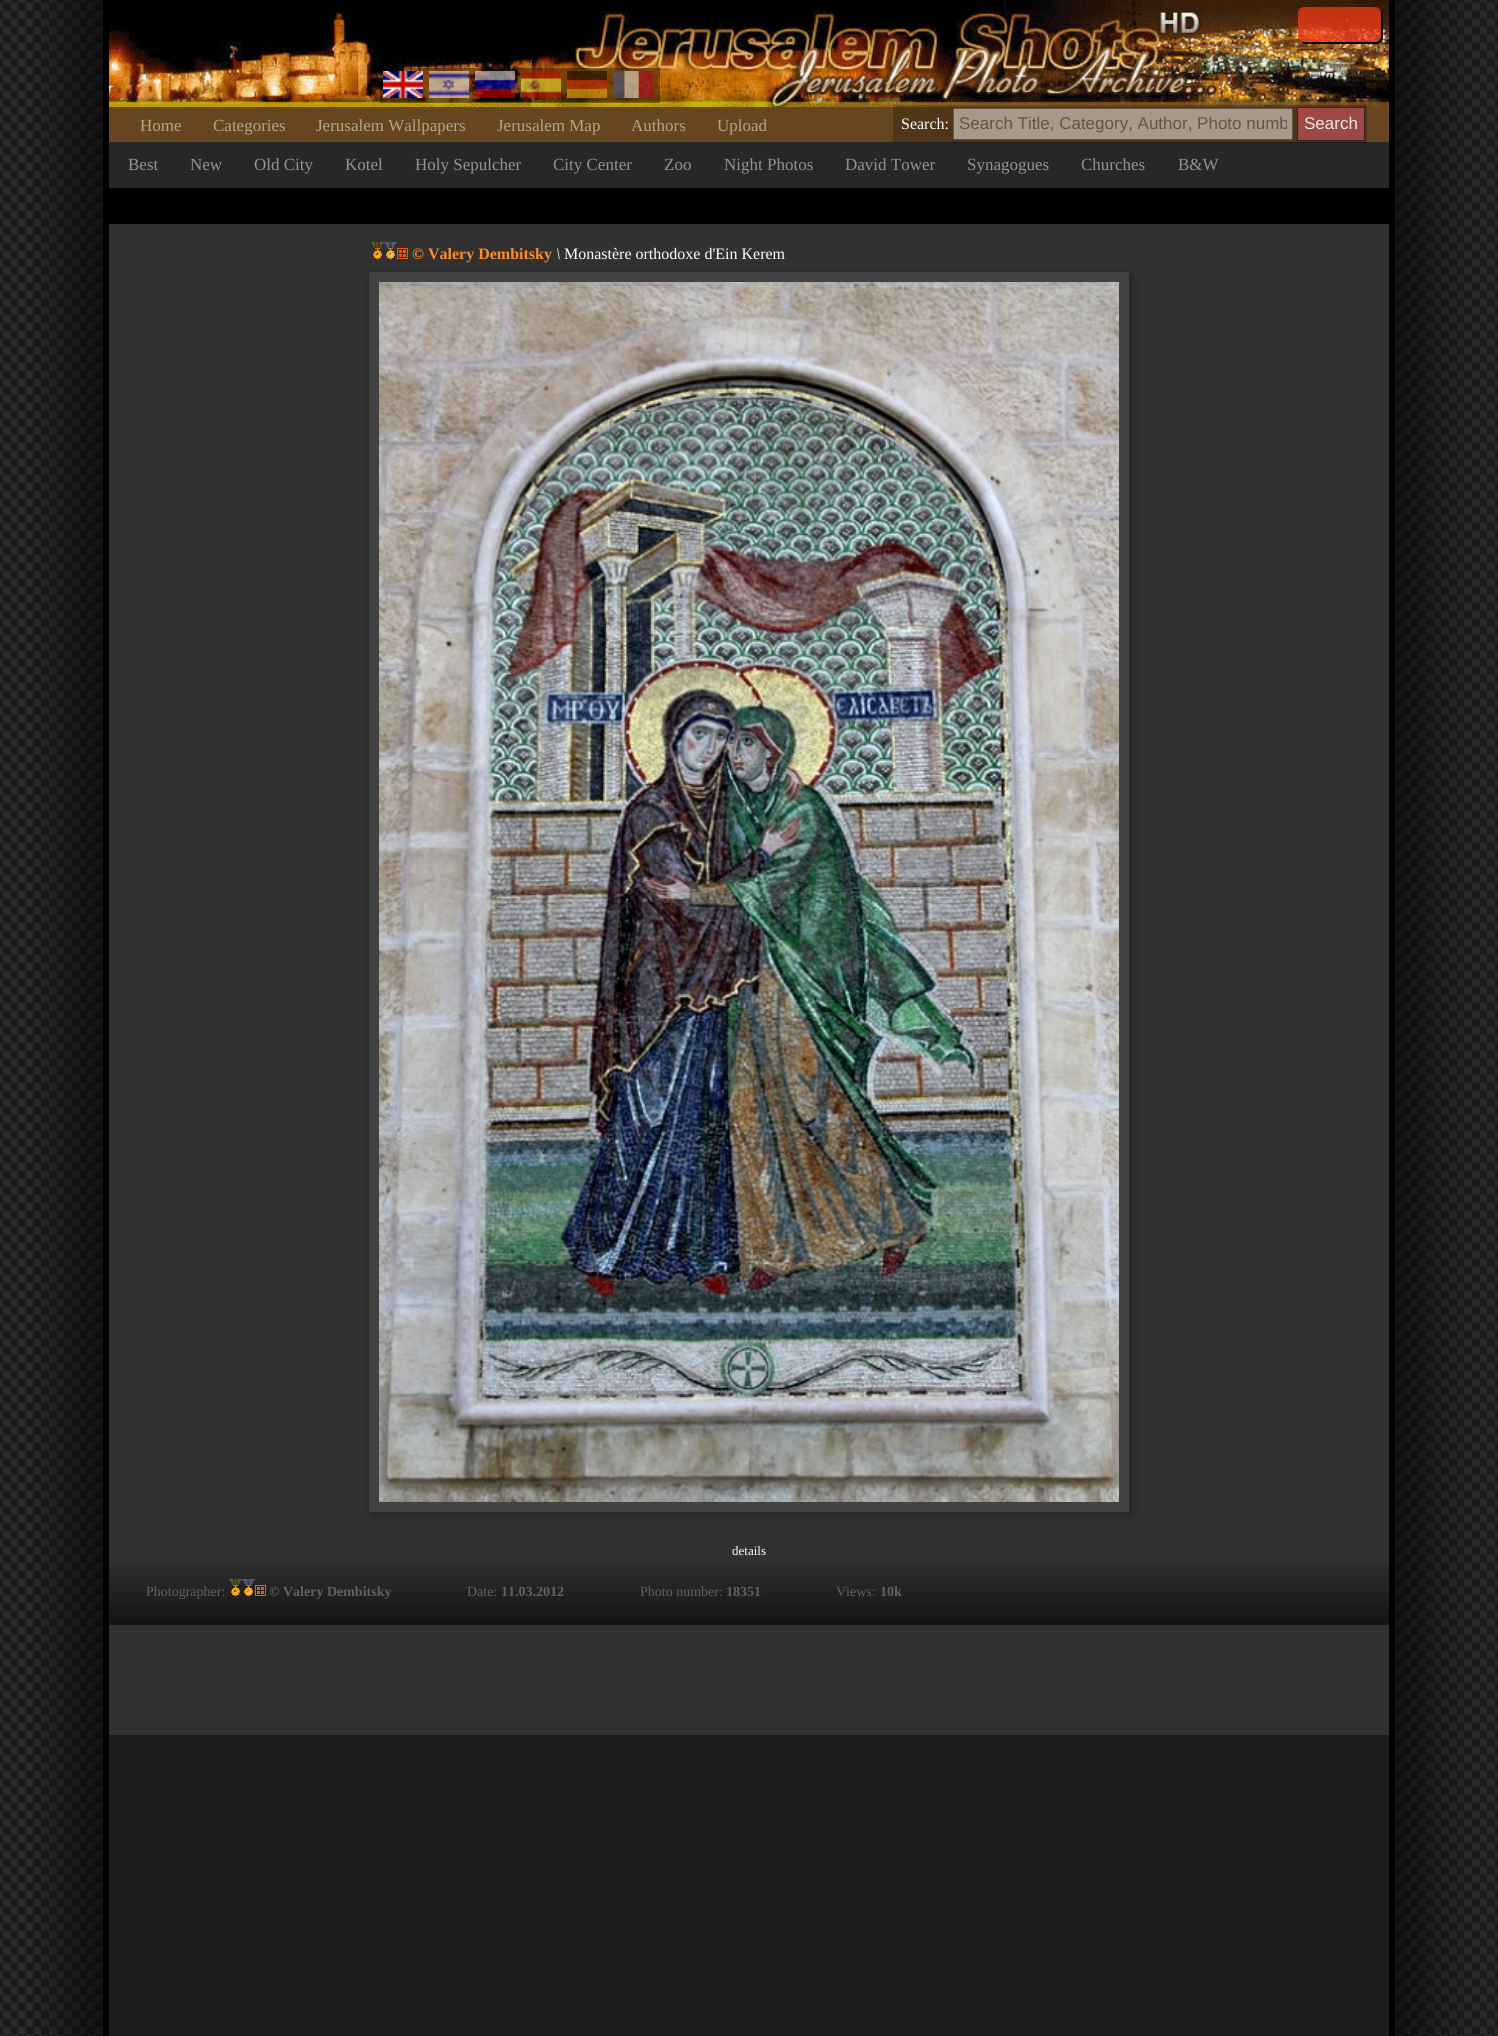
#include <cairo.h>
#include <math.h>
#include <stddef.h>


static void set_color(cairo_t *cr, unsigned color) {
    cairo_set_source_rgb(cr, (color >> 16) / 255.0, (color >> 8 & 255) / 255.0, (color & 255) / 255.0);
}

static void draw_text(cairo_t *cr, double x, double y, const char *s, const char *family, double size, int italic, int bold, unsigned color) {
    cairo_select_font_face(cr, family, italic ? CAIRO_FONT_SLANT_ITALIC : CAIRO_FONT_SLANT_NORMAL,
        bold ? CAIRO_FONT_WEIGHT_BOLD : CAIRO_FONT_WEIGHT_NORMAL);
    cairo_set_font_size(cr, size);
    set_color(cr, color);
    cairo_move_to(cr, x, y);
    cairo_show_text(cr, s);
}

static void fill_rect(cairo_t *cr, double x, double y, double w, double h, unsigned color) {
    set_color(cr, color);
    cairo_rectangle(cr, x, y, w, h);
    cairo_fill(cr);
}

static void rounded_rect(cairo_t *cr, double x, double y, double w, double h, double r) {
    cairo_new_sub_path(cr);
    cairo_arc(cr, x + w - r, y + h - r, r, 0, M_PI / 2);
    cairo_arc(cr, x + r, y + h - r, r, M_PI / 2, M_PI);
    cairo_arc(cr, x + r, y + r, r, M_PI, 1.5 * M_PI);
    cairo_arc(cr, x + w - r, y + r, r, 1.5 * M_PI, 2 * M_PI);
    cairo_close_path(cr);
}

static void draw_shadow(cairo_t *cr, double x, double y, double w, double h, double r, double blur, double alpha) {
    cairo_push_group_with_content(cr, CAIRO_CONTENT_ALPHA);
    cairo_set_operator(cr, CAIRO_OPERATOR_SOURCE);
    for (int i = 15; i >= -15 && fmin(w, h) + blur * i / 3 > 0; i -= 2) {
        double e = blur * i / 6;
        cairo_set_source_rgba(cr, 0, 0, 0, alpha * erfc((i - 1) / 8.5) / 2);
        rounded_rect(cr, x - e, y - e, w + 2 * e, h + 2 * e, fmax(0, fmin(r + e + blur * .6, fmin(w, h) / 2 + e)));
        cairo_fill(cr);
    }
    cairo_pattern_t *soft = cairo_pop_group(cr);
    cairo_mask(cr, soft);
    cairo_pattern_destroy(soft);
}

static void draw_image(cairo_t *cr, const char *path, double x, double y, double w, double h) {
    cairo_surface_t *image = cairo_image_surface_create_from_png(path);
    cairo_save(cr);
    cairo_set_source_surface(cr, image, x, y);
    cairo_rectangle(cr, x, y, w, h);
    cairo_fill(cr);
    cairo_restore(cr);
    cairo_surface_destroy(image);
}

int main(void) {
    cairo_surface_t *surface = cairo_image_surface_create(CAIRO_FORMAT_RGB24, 1498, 2036);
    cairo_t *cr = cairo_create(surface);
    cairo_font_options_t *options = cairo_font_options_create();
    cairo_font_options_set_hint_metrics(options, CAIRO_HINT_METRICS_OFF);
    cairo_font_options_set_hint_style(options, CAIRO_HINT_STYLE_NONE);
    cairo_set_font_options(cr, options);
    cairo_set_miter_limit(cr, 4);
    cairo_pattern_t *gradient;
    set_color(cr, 0xFFFFFF);
    cairo_paint(cr);
    draw_image(cr, "assets/img1.png", 0, 0, 1498, 2036);
    draw_image(cr, "assets/img2.png", 109, 0, 1280, 107);
    fill_rect(cr, 109, 107, 1280, 35, 0x67461F);
    fill_rect(cr, 109, 142, 1280, 46, 0x272727);
    cairo_set_source_rgba(cr, 0, 0, 0, 0.23);
    cairo_rectangle(cr, 893, 105, 474, 38);
    cairo_fill(cr);
    draw_text(cr, 901, 129, "Search:", "Liberation Serif", 16, 0, 0, 0xFFFFFF);
    set_color(cr, 0xA79A8B);
    rounded_rect(cr, 953.5, 108.5, 339, 31, 1.5);
    cairo_fill_preserve(cr);
    set_color(cr, 0x635647);
    cairo_set_line_width(cr, 1);
    cairo_stroke(cr);
    cairo_save(cr);
    cairo_rectangle(cr, 959, 114, 328, 20);
    cairo_clip(cr);
    draw_text(cr, 959, 129, "Search Title, Category, Author, Photo numb", "Liberation Sans", 17, 0, 0, 0x625546);
    cairo_restore(cr);
    set_color(cr, 0x9D4844);
    cairo_rectangle(cr, 1297.5, 107.5, 67, 33);
    cairo_fill_preserve(cr);
    set_color(cr, 0x381E1C);
    cairo_stroke(cr);
    draw_text(cr, 1304, 129, "Search", "Liberation Sans", 17, 0, 0, 0xE6E6E6);
    set_color(cr, 0x000000);
    cairo_new_path(cr);
    cairo_move_to(cr, 1301, 41);
    cairo_curve_to(cr, 1302, 43, 1304, 44, 1306, 44);
    cairo_line_to(cr, 1377, 44);
    cairo_curve_to(cr, 1380, 44, 1383, 41, 1383, 38);
    cairo_line_to(cr, 1383, 15);
    cairo_curve_to(cr, 1383, 13, 1382, 11, 1380, 10);
    cairo_line_to(cr, 1381, 13);
    cairo_line_to(cr, 1381, 36);
    cairo_curve_to(cr, 1381, 39, 1378, 42, 1375, 42);
    cairo_line_to(cr, 1304, 42);
    cairo_close_path(cr);
    cairo_fill(cr);
    cairo_set_source_rgba(cr, 0.98, 0.231, 0.086, 0.72);
    rounded_rect(cr, 1298, 7, 83, 35, 6);
    cairo_fill(cr);
    cairo_set_source_rgba(cr, 0, 0, 0, 0.38);
    cairo_rectangle(cr, 380, 68, 280, 35);
    cairo_fill(cr);
    draw_image(cr, "assets/img3.png", 383, 71, 40, 27);
    draw_image(cr, "assets/img4.png", 429, 71, 40, 27);
    draw_image(cr, "assets/img5.png", 475, 71, 40, 27);
    draw_image(cr, "assets/img6.png", 521, 71, 40, 27);
    draw_image(cr, "assets/img7.png", 567, 71, 40, 27);
    draw_image(cr, "assets/img8.png", 613, 71, 40, 27);
    draw_text(cr, 140, 131, "Home", "Liberation Serif", 17, 0, 0, 0xB3A38F);
    draw_text(cr, 213, 131, "Categories", "Liberation Serif", 17, 0, 0, 0xB3A38F);
    draw_text(cr, 316, 131, "Jerusalem Wallpapers", "Liberation Serif", 17, 0, 0, 0xB3A38F);
    draw_text(cr, 497, 131, "Jerusalem Map", "Liberation Serif", 17, 0, 0, 0xB3A38F);
    draw_text(cr, 631, 131, "Authors", "Liberation Serif", 17, 0, 0, 0xB3A38F);
    draw_text(cr, 717, 131, "Upload", "Liberation Serif", 17, 0, 0, 0xB3A38F);
    draw_text(cr, 128, 170, "Best", "Liberation Serif", 17, 0, 0, 0x939393);
    draw_text(cr, 190, 170, "New", "Liberation Serif", 17, 0, 0, 0x939393);
    draw_text(cr, 254, 170, "Old City", "Liberation Serif", 17, 0, 0, 0x939393);
    draw_text(cr, 345, 170, "Kotel", "Liberation Serif", 17, 0, 0, 0x939393);
    draw_text(cr, 415, 170, "Holy Sepulcher", "Liberation Serif", 17, 0, 0, 0x939393);
    draw_text(cr, 553, 170, "City Center", "Liberation Serif", 17, 0, 0, 0x939393);
    draw_text(cr, 664, 170, "Zoo", "Liberation Serif", 17, 0, 0, 0x939393);
    draw_text(cr, 724, 170, "Night Photos", "Liberation Serif", 17, 0, 0, 0x939393);
    draw_text(cr, 845, 170, "David Tower", "Liberation Serif", 17, 0, 0, 0x939393);
    draw_text(cr, 967, 170, "Synagogues", "Liberation Serif", 17, 0, 0, 0x939393);
    draw_text(cr, 1081, 170, "Churches", "Liberation Serif", 17, 0, 0, 0x939393);
    draw_text(cr, 1178, 170, "B&W", "Liberation Serif", 17, 0, 0, 0x939393);
    fill_rect(cr, 109, 224, 1280, 1511, 0x313131);
    draw_image(cr, "assets/img9.png", 371, 242, 13, 17);
    draw_image(cr, "assets/img10.png", 384, 242, 13, 17);
    draw_image(cr, "assets/img11.png", 397, 248, 11, 11);
    draw_text(cr, 412, 259, "© Valery Dembitsky", "Liberation Serif", 16, 0, 1, 0xFF8C22);
    draw_text(cr, 556, 259, "\\", "Liberation Serif", 16, 1, 0, 0xFFFFFF);
    draw_text(cr, 564, 259, "Monastère orthodoxe d'Ein Kerem", "Liberation Serif", 16, 0, 0, 0xFFFFFF);
    set_color(cr, 0x000000);
    draw_shadow(cr, 372, 275, 760, 1240, 0, 5, 0.32);
    cairo_rectangle(cr, 374, 277, 750, 1230);
    set_color(cr, 0x424242);
    cairo_set_line_width(cr, 10);
    cairo_stroke(cr);
    draw_image(cr, "assets/img12.png", 379, 282, 740, 1220);
    draw_text(cr, 732, 1555, "details", "Liberation Serif", 13, 0, 0, 0xFFFFFF);
    gradient = cairo_pattern_create_linear(749, 1559, 749, 1625);
    cairo_pattern_add_color_stop_rgba(gradient, 0, 0.188, 0.188, 0.188, 1);
    cairo_pattern_add_color_stop_rgba(gradient, 1, 0.075, 0.075, 0.075, 1);
    cairo_set_source(cr, gradient);
    cairo_pattern_destroy(gradient);
    cairo_rectangle(cr, 109, 1562, 1280, 63);
    cairo_fill(cr);
    draw_text(cr, 146, 1596, "Photographer:", "Liberation Serif", 14, 0, 0, 0x616161);
    draw_image(cr, "assets/img13.png", 229, 1579, 13, 17);
    draw_image(cr, "assets/img14.png", 242, 1579, 13, 17);
    draw_image(cr, "assets/img15.png", 255, 1585, 11, 11);
    draw_text(cr, 269, 1596, "© Valery Dembitsky", "Liberation Serif", 14, 0, 1, 0x616161);
    draw_text(cr, 467, 1596, "Date:", "Liberation Serif", 14, 0, 0, 0x616161);
    draw_text(cr, 501, 1596, "11.03.2012", "Liberation Serif", 14, 0, 1, 0x616161);
    draw_text(cr, 640, 1596, "Photo number:", "Liberation Serif", 14, 0, 0, 0x616161);
    draw_text(cr, 726, 1596, "18351", "Liberation Serif", 14, 0, 1, 0x616161);
    draw_text(cr, 836, 1596, "Views:", "Liberation Serif", 14, 0, 0, 0x616161);
    draw_text(cr, 880, 1596, "10k", "Liberation Serif", 14, 0, 1, 0x616161);
    fill_rect(cr, 109, 1735, 1280, 301, 0x1B1B1B);
    cairo_surface_write_to_png(surface, "output.png");
    cairo_font_options_destroy(options);
    cairo_destroy(cr);
    cairo_surface_destroy(surface);
    return 0;
}
